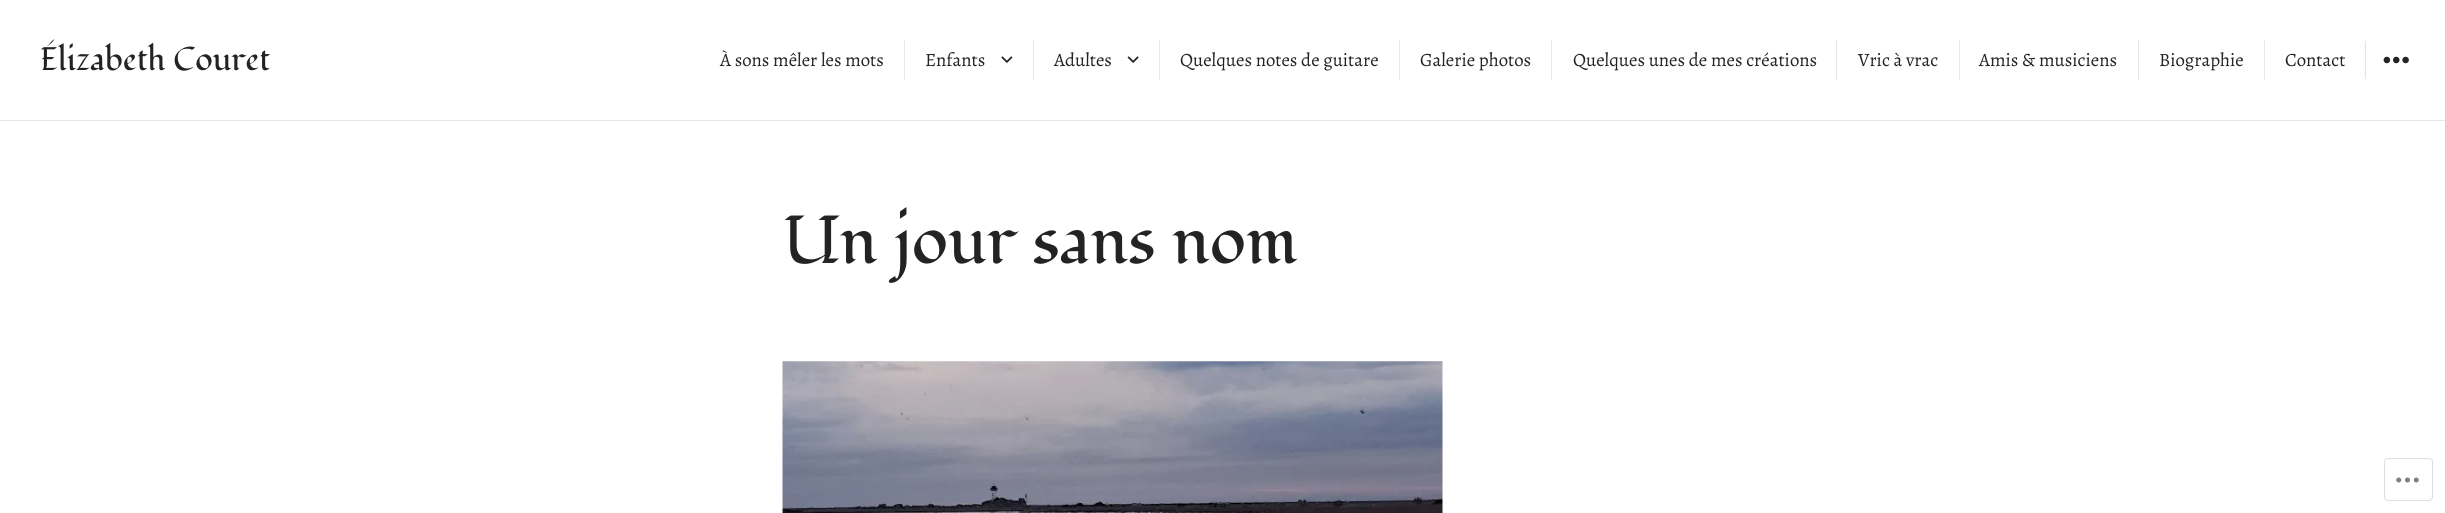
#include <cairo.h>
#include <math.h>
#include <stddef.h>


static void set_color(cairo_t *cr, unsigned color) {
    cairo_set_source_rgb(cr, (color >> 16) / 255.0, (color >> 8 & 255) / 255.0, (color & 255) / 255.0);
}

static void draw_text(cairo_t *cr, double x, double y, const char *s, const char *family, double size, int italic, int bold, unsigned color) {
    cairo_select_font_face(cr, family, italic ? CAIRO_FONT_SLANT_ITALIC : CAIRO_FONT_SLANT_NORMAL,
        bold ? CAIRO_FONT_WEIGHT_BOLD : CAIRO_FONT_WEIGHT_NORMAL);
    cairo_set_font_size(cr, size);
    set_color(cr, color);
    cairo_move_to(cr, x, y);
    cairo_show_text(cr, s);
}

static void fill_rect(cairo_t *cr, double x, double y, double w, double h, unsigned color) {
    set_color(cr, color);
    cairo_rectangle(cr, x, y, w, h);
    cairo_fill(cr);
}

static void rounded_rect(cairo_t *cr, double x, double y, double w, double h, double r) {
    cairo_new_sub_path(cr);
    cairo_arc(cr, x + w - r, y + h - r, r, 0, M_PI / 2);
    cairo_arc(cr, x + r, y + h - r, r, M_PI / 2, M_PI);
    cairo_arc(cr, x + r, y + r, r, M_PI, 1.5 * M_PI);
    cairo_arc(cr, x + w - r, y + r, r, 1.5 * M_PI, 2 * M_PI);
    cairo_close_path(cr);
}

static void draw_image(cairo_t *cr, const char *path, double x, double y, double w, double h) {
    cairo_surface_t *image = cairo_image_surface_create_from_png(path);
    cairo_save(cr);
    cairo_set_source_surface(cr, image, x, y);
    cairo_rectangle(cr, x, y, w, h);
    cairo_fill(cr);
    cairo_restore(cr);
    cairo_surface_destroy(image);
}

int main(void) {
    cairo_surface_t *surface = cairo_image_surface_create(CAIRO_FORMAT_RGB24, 2445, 513);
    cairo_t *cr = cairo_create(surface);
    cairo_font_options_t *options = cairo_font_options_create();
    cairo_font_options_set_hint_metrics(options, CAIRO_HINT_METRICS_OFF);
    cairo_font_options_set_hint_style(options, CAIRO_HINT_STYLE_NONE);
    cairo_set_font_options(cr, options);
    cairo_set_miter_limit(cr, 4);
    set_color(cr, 0xFFFFFF);
    cairo_paint(cr);
    fill_rect(cr, 0, 120, 2445, 1, 0xE6E6E6);
    draw_text(cr, 40, 70, "Élizabeth Couret", "Fondamento", 32.5, 0, 0, 0x232323);
    draw_text(cr, 720, 66, "À sons mêler les mots", "Alegreya", 18.75, 0, 0, 0x232323);
    fill_rect(cr, 904, 40, 1, 40, 0xE6E6E6);
    draw_text(cr, 925, 66, "Enfants", "Alegreya", 18.75, 0, 0, 0x232323);
    draw_image(cr, "assets/img1.png", 1001, 56, 12, 7);
    fill_rect(cr, 1033, 40, 1, 40, 0xE6E6E6);
    draw_text(cr, 1054, 66, "Adultes", "Alegreya", 18.75, 0, 0, 0x232323);
    draw_image(cr, "assets/img2.png", 1127, 56, 12, 7);
    fill_rect(cr, 1159, 40, 1, 40, 0xE6E6E6);
    draw_text(cr, 1180, 66, "Quelques notes de guitare", "Alegreya", 18.75, 0, 0, 0x232323);
    fill_rect(cr, 1399, 40, 1, 40, 0xE6E6E6);
    draw_text(cr, 1420, 66, "Galerie photos", "Alegreya", 18.75, 0, 0, 0x232323);
    fill_rect(cr, 1551, 40, 1, 40, 0xE6E6E6);
    draw_text(cr, 1573, 66, "Quelques unes de mes créations", "Alegreya", 18.75, 0, 0, 0x232323);
    fill_rect(cr, 1836, 40, 1, 40, 0xE6E6E6);
    draw_text(cr, 1858, 66, "Vric à vrac", "Alegreya", 18.75, 0, 0, 0x232323);
    fill_rect(cr, 1959, 40, 1, 40, 0xE6E6E6);
    draw_text(cr, 1979, 66, "Amis & musiciens", "Alegreya", 18.75, 0, 0, 0x232323);
    fill_rect(cr, 2138, 40, 1, 40, 0xE6E6E6);
    draw_text(cr, 2159, 66, "Biographie", "Alegreya", 18.75, 0, 0, 0x232323);
    fill_rect(cr, 2264, 40, 1, 40, 0xE6E6E6);
    draw_text(cr, 2285, 66, "Contact", "Alegreya", 18.75, 0, 0, 0x232323);
    cairo_new_path(cr);
    cairo_move_to(cr, 2366, 79);
    cairo_line_to(cr, 2365.5, 77.5);
    cairo_line_to(cr, 2365.5, 42.5);
    cairo_line_to(cr, 2366, 41);
    set_color(cr, 0xE6E6E6);
    cairo_set_line_width(cr, 1.2);
    cairo_stroke(cr);
    draw_image(cr, "assets/img3.png", 2383, 56, 26, 8);
    draw_text(cr, 783, 263, "Un jour sans nom", "Fondamento", 67.5, 0, 0, 0x232323);
    draw_image(cr, "assets/img4.png", 782, 361, 661, 152);
    rounded_rect(cr, 2384.5, 458.5, 48, 42, 3.5);
    set_color(cr, 0xDDDDDF);
    cairo_set_line_width(cr, 1);
    cairo_stroke(cr);
    draw_image(cr, "assets/img5.png", 2396, 477, 23, 6);
    cairo_surface_write_to_png(surface, "output.png");
    cairo_font_options_destroy(options);
    cairo_destroy(cr);
    cairo_surface_destroy(surface);
    return 0;
}
